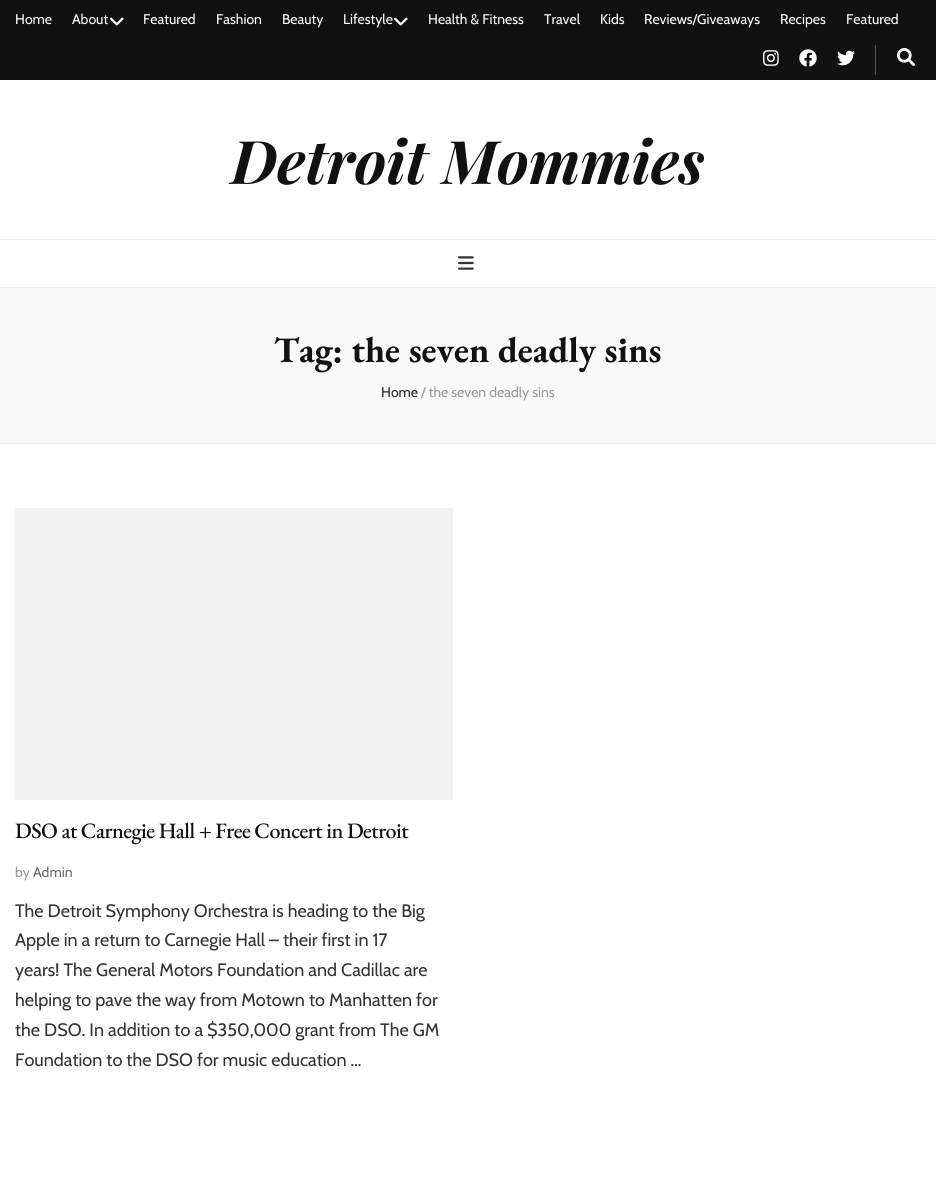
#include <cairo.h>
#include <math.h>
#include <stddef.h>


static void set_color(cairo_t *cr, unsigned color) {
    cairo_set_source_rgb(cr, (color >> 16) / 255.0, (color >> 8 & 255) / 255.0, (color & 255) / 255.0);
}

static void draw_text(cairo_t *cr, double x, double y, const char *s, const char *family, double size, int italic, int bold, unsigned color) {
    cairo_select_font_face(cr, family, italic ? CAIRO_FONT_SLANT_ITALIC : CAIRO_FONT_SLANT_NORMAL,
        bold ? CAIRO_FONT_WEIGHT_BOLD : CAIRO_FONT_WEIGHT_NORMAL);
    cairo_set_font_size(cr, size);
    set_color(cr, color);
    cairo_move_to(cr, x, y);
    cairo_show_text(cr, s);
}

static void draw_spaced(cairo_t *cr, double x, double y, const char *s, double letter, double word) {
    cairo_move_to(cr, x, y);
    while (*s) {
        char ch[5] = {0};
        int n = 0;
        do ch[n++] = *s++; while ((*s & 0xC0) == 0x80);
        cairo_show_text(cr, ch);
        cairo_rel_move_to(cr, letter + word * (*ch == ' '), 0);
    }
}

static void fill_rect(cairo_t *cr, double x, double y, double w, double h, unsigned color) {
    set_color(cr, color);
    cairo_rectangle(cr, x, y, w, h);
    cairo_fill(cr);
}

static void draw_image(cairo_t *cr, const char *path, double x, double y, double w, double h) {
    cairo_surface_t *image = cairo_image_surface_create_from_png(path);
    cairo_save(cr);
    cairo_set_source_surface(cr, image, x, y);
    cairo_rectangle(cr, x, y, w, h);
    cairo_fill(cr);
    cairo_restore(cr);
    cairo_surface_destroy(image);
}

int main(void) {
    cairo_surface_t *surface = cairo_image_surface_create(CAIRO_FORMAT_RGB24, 936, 1183);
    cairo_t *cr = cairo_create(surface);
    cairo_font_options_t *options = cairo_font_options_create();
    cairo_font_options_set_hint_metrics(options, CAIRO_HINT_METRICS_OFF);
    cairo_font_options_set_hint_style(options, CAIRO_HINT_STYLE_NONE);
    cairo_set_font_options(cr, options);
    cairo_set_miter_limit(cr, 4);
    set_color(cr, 0xFFFFFF);
    cairo_paint(cr);
    fill_rect(cr, 0, 0, 936, 80, 0x111111);
    draw_text(cr, 15, 24, "Home", "Cabin", 14, 0, 0, 0xFFFFFF);
    draw_text(cr, 72, 24, "About", "Cabin", 14, 0, 0, 0xFFFFFF);
    draw_image(cr, "assets/img1.png", 110, 17, 14, 9);
    draw_text(cr, 143, 24, "Featured", "Cabin", 14, 0, 0, 0xFFFFFF);
    draw_text(cr, 216, 24, "Fashion", "Cabin", 14, 0, 0, 0xFFFFFF);
    draw_text(cr, 282, 24, "Beauty", "Cabin", 14, 0, 0, 0xFFFFFF);
    draw_text(cr, 343, 24, "Lifestyle", "Cabin", 14, 0, 0, 0xFFFFFF);
    draw_image(cr, "assets/img1.png", 394, 17, 14, 9);
    draw_text(cr, 428, 24, "Health & Fitness", "Cabin", 14, 0, 0, 0xFFFFFF);
    draw_text(cr, 544, 24, "Travel", "Cabin", 14, 0, 0, 0xFFFFFF);
    draw_text(cr, 600, 24, "Kids", "Cabin", 14, 0, 0, 0xFFFFFF);
    draw_text(cr, 644, 24, "Reviews/Giveaways", "Cabin", 14, 0, 0, 0xFFFFFF);
    draw_text(cr, 780, 24, "Recipes", "Cabin", 14, 0, 0, 0xFFFFFF);
    draw_text(cr, 846, 24, "Featured", "Cabin", 14, 0, 0, 0xFFFFFF);
    fill_rect(cr, 875, 45, 1, 30, 0x595959);
    draw_image(cr, "assets/img2.png", 763, 50, 16, 16);
    draw_image(cr, "assets/img3.png", 799, 49, 18, 18);
    draw_image(cr, "assets/img4.png", 837, 50, 18, 16);
    draw_image(cr, "assets/img5.png", 897, 48, 18, 18);
    draw_text(cr, 231, 184, "Detroit Mommies", "Playfair Display", 60, 1, 1, 0x111111);
    fill_rect(cr, 0, 239, 936, 1, 0xEEEEEE);
    fill_rect(cr, 0, 287, 936, 1, 0xEEEEEE);
    draw_image(cr, "assets/img6.png", 458, 256, 16, 14);
    fill_rect(cr, 0, 288, 936, 155, 0xF9F9F9);
    fill_rect(cr, 0, 443, 936, 1, 0xEEEEEE);
    draw_text(cr, 274, 362, "Tag: the seven deadly sins", "EB Garamond", 36, 0, 1, 0x111111);
    draw_text(cr, 381, 397, "Home", "Cabin", 14, 0, 0, 0x222222);
    draw_text(cr, 421, 397, "/ the seven deadly sins", "Cabin", 14, 0, 0, 0x999999);
    fill_rect(cr, 15, 508, 438, 292, 0xF2F2F2);
    cairo_select_font_face(cr, "EB Garamond Medium", CAIRO_FONT_SLANT_NORMAL, CAIRO_FONT_WEIGHT_NORMAL);
    cairo_set_font_size(cr, 22);
    set_color(cr, 0x111111);
    draw_spaced(cr, 15, 838, "DSO at Carnegie Hall + Free Concert in Detroit", -0.55, 0);
    draw_text(cr, 15, 877, "by", "Cabin", 14, 0, 0, 0x999999);
    draw_text(cr, 33, 877, "Admin", "Cabin", 14, 0, 0, 0x666666);
    draw_text(cr, 15, 917, "The Detroit Symphony Orchestra is heading to the Big", "Cabin", 18, 0, 0, 0x333333);
    draw_text(cr, 15, 946, "Apple in a return to Carnegie Hall – their first in 17", "Cabin", 18, 0, 0, 0x333333);
    draw_text(cr, 15, 976, "years! The General Motors Foundation and Cadillac are", "Cabin", 18, 0, 0, 0x333333);
    draw_text(cr, 15, 1006, "helping to pave the way from Motown to Manhatten for", "Cabin", 18, 0, 0, 0x333333);
    draw_text(cr, 15, 1036, "the DSO. In addition to a $350,000 grant from The GM", "Cabin", 18, 0, 0, 0x333333);
    draw_text(cr, 15, 1066, "Foundation to the DSO for music education …", "Cabin", 18, 0, 0, 0x333333);
    cairo_surface_write_to_png(surface, "output.png");
    cairo_font_options_destroy(options);
    cairo_destroy(cr);
    cairo_surface_destroy(surface);
    return 0;
}
